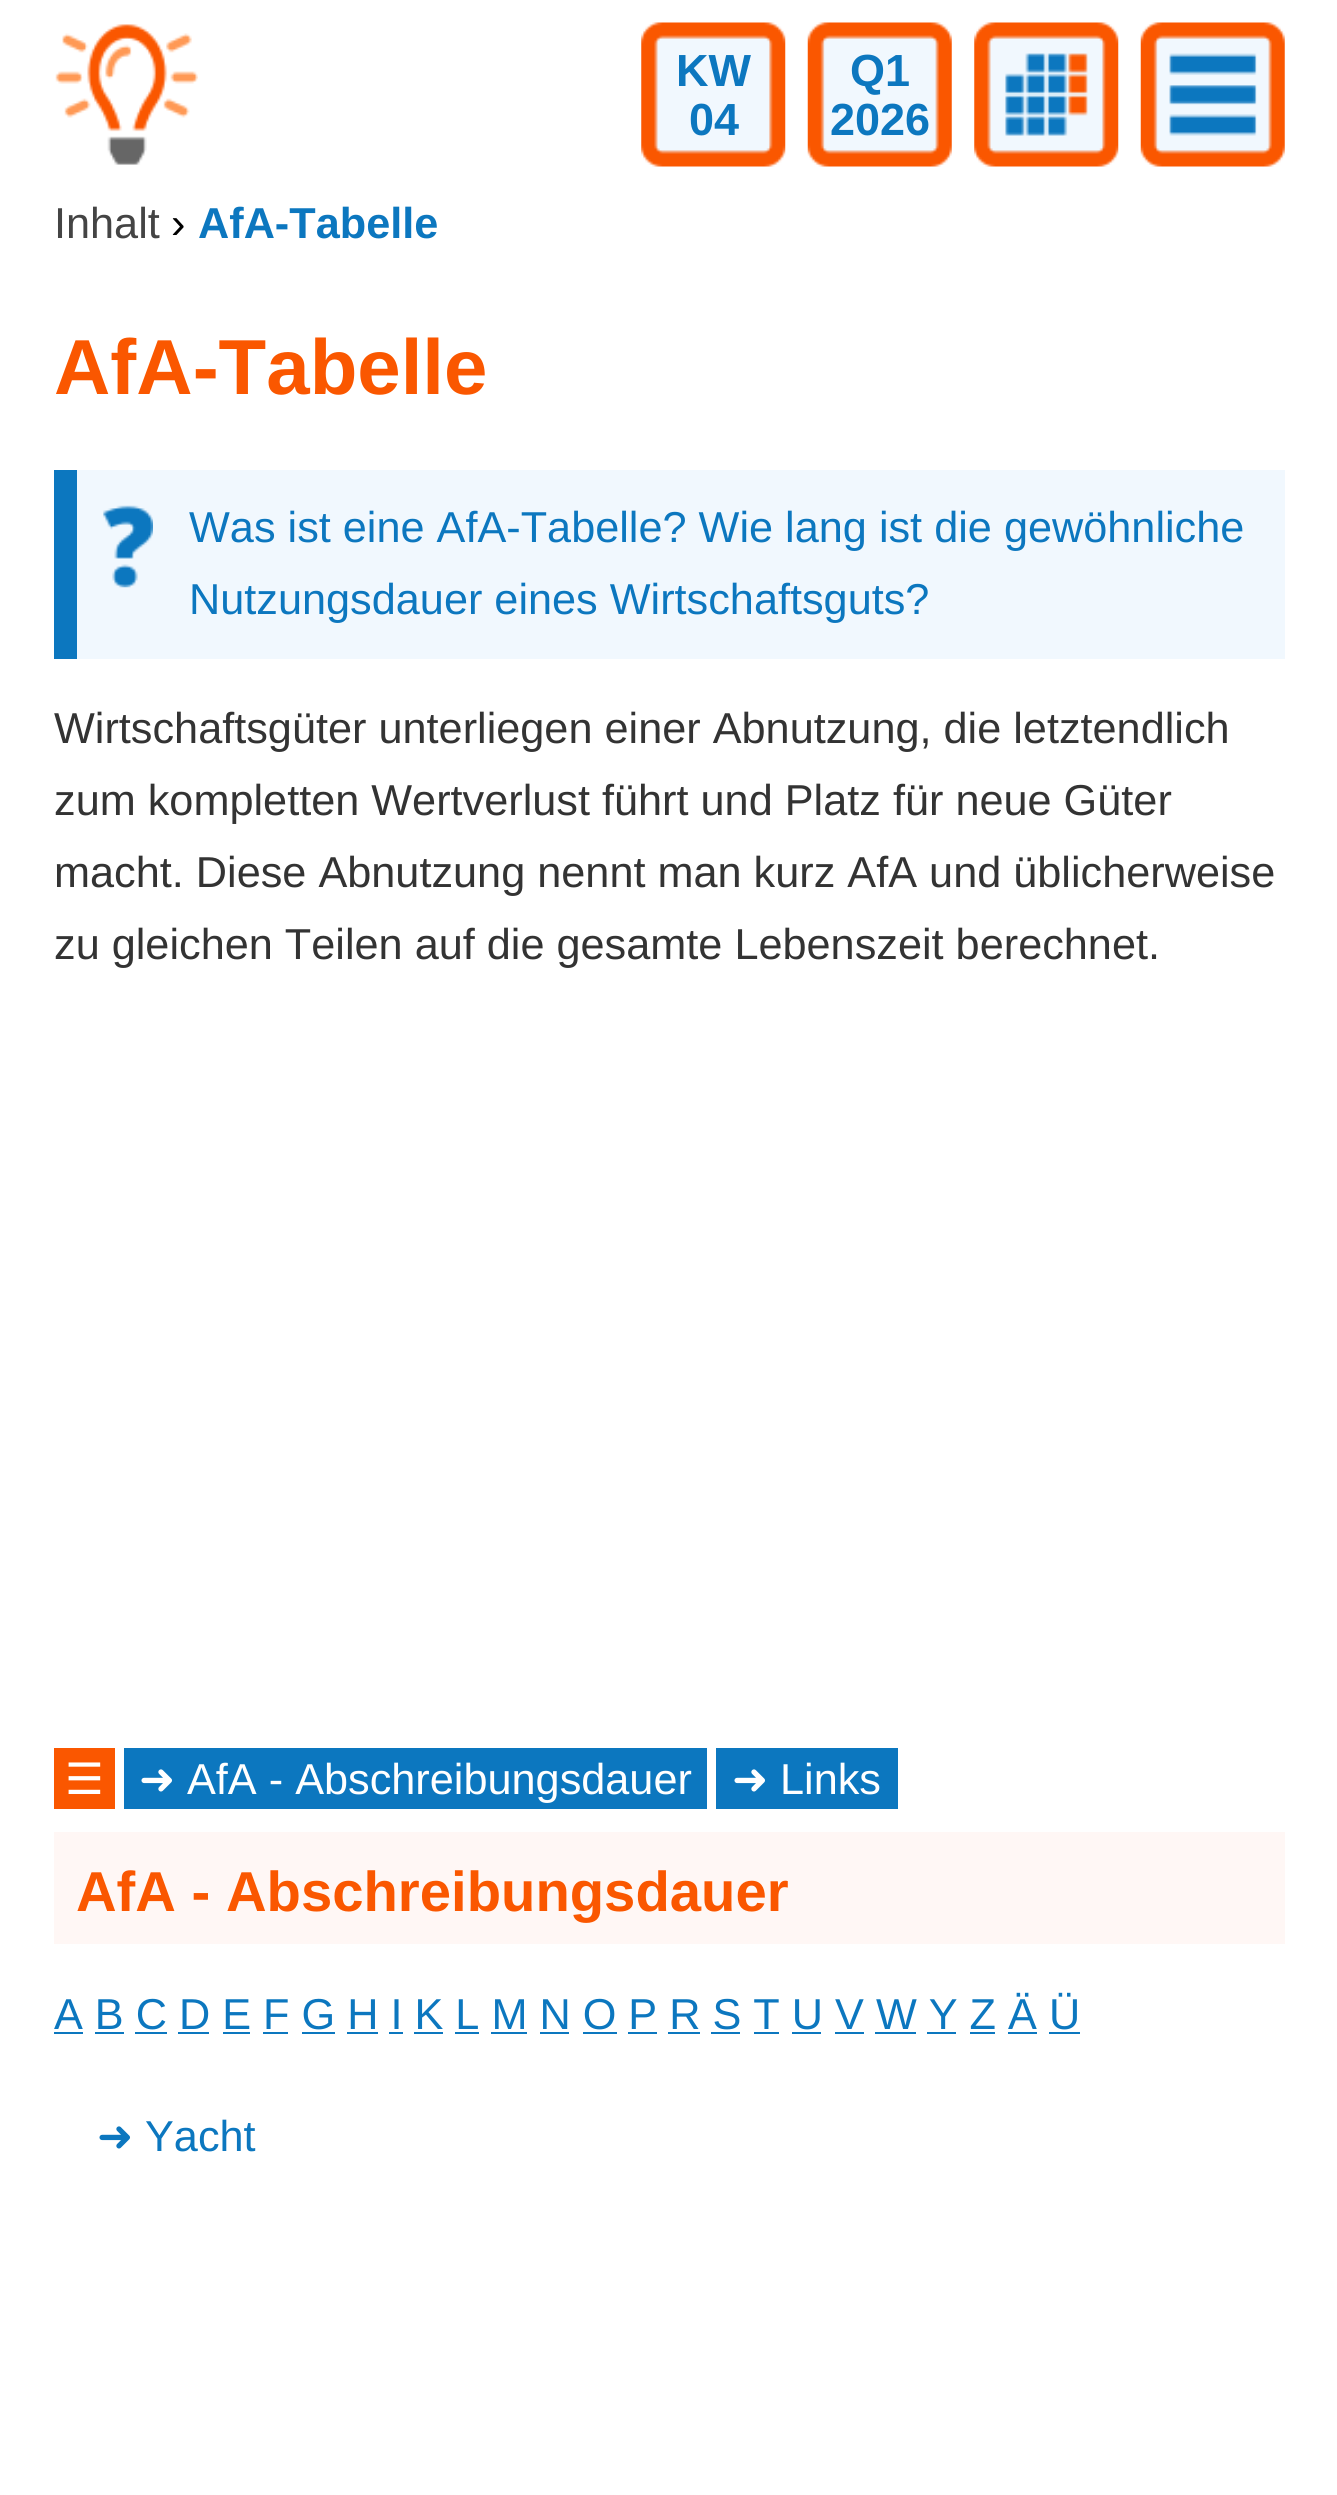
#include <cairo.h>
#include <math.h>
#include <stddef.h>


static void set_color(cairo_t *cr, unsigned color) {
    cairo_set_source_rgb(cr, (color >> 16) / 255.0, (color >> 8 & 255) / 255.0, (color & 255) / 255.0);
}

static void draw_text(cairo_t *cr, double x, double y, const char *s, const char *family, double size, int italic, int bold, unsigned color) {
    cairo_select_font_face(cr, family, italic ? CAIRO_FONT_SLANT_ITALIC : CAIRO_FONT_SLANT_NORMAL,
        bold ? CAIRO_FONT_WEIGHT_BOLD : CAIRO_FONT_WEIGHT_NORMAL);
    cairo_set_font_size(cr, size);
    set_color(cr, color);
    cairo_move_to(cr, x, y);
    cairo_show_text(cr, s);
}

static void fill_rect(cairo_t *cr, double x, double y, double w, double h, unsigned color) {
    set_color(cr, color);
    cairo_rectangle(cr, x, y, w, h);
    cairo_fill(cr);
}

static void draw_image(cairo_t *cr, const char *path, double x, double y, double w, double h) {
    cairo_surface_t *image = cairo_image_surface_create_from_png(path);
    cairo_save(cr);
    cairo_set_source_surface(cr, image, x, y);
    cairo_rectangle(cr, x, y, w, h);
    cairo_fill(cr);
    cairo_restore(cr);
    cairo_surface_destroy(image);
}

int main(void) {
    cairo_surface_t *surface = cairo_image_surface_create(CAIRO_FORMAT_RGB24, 1337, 2495);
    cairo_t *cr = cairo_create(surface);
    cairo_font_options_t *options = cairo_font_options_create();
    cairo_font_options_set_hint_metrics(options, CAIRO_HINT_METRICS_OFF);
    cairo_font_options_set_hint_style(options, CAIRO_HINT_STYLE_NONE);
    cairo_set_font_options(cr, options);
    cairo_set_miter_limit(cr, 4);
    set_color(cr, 0xFFFFFF);
    cairo_paint(cr);
    draw_image(cr, "assets/img1.png", 55, 24, 143, 141);
    draw_image(cr, "assets/img2.png", 641, 22, 145, 145);
    draw_text(cr, 676, 86, "KW", "Liberation Sans", 45, 0, 1, 0x0C77BF);
    draw_text(cr, 689, 135, "04", "Liberation Sans", 45, 0, 1, 0x0C77BF);
    draw_image(cr, "assets/img3.png", 807, 22, 145, 145);
    draw_text(cr, 850, 86, "Q1", "Liberation Sans", 45, 0, 1, 0x0C77BF);
    draw_text(cr, 830, 135, "2026", "Liberation Sans", 45, 0, 1, 0x0C77BF);
    draw_image(cr, "assets/img4.png", 974, 22, 145, 145);
    draw_image(cr, "assets/img5.png", 1140, 22, 145, 145);
    draw_text(cr, 54, 238, "Inhalt", "Liberation Sans", 43.25, 0, 0, 0x444444);
    draw_text(cr, 171, 238, "›", "Liberation Sans", 43.25, 0, 0, 0x000000);
    draw_text(cr, 198, 238, "AfA-Tabelle", "Liberation Sans", 43.25, 0, 1, 0x0C77BF);
    draw_text(cr, 54, 394, "AfA-Tabelle", "Liberation Sans", 78, 0, 1, 0xFA5700);
    fill_rect(cr, 77, 470, 1208, 189, 0xF1F8FE);
    draw_image(cr, "assets/img6.png", 103, 505, 50, 83);
    fill_rect(cr, 54, 470, 23, 189, 0x0C77BF);
    draw_text(cr, 189, 542, "Was ist eine AfA-Tabelle? Wie lang ist die gewöhnliche", "Liberation Sans", 43.25, 0, 0, 0x0C77BF);
    draw_text(cr, 189, 614, "Nutzungsdauer eines Wirtschaftsguts?", "Liberation Sans", 43.25, 0, 0, 0x0C77BF);
    draw_text(cr, 54, 743, "Wirtschaftsgüter unterliegen einer Abnutzung, die letztendlich", "Liberation Sans", 43.25, 0, 0, 0x333333);
    draw_text(cr, 54, 815, "zum kompletten Wertverlust führt und Platz für neue Güter", "Liberation Sans", 43.25, 0, 0, 0x333333);
    draw_text(cr, 54, 887, "macht. Diese Abnutzung nennt man kurz AfA und üblicherweise", "Liberation Sans", 43.25, 0, 0, 0x333333);
    draw_text(cr, 54, 959, "zu gleichen Teilen auf die gesamte Lebenszeit berechnet.", "Liberation Sans", 43.25, 0, 0, 0x333333);
    fill_rect(cr, 54, 1748, 61, 61, 0xFA5700);
    draw_text(cr, 65, 1794, "☰", "DejaVu Sans", 43.25, 0, 0, 0xFFFFFF);
    fill_rect(cr, 124, 1748, 583, 61, 0x0C77BF);
    draw_text(cr, 139, 1794, "➜", "DejaVu Sans", 43.25, 0, 0, 0xFFFFFF);
    draw_text(cr, 187, 1794, "AfA - Abschreibungsdauer", "Liberation Sans", 43.25, 0, 0, 0xFFFFFF);
    fill_rect(cr, 716, 1748, 182, 61, 0x0C77BF);
    draw_text(cr, 732, 1794, "➜", "DejaVu Sans", 43.25, 0, 0, 0xFFFFFF);
    draw_text(cr, 780, 1794, "Links", "Liberation Sans", 43.25, 0, 0, 0xFFFFFF);
    fill_rect(cr, 54, 1832, 1231, 112, 0xFFF7F5);
    draw_text(cr, 76, 1911, "AfA - Abschreibungsdauer", "Liberation Sans", 56.25, 0, 1, 0xFA5700);
    draw_text(cr, 54, 2029, "A B C D E F G H I K L M N O P R S T U V W Y Z Ä Ü", "Liberation Sans", 43.25, 0, 0, 0x0C77BF);
    fill_rect(cr, 54, 2032, 29, 2, 0x0C77BF);
    fill_rect(cr, 95, 2032, 29, 2, 0x0C77BF);
    fill_rect(cr, 135, 2032, 32, 2, 0x0C77BF);
    fill_rect(cr, 178, 2032, 31, 2, 0x0C77BF);
    fill_rect(cr, 223, 2032, 27, 2, 0x0C77BF);
    fill_rect(cr, 263, 2032, 25, 2, 0x0C77BF);
    fill_rect(cr, 302, 2032, 33, 2, 0x0C77BF);
    fill_rect(cr, 347, 2032, 31, 2, 0x0C77BF);
    fill_rect(cr, 389, 2032, 14, 2, 0x0C77BF);
    fill_rect(cr, 414, 2032, 29, 2, 0x0C77BF);
    fill_rect(cr, 455, 2032, 24, 2, 0x0C77BF);
    fill_rect(cr, 491, 2032, 36, 2, 0x0C77BF);
    fill_rect(cr, 540, 2032, 29, 2, 0x0C77BF);
    fill_rect(cr, 583, 2032, 34, 2, 0x0C77BF);
    fill_rect(cr, 628, 2032, 29, 2, 0x0C77BF);
    fill_rect(cr, 668, 2032, 32, 2, 0x0C77BF);
    fill_rect(cr, 711, 2032, 29, 2, 0x0C77BF);
    fill_rect(cr, 754, 2032, 25, 2, 0x0C77BF);
    fill_rect(cr, 792, 2032, 29, 2, 0x0C77BF);
    fill_rect(cr, 835, 2032, 29, 2, 0x0C77BF);
    fill_rect(cr, 875, 2032, 41, 2, 0x0C77BF);
    fill_rect(cr, 927, 2032, 29, 2, 0x0C77BF);
    fill_rect(cr, 970, 2032, 25, 2, 0x0C77BF);
    fill_rect(cr, 1008, 2032, 29, 2, 0x0C77BF);
    fill_rect(cr, 1049, 2032, 31, 2, 0x0C77BF);
    draw_text(cr, 97, 2151, "➜", "DejaVu Sans", 43.25, 0, 0, 0x0C77BF);
    draw_text(cr, 145, 2151, "Yacht", "Liberation Sans", 43.25, 0, 0, 0x0C77BF);
    cairo_surface_write_to_png(surface, "output.png");
    cairo_font_options_destroy(options);
    cairo_destroy(cr);
    cairo_surface_destroy(surface);
    return 0;
}
